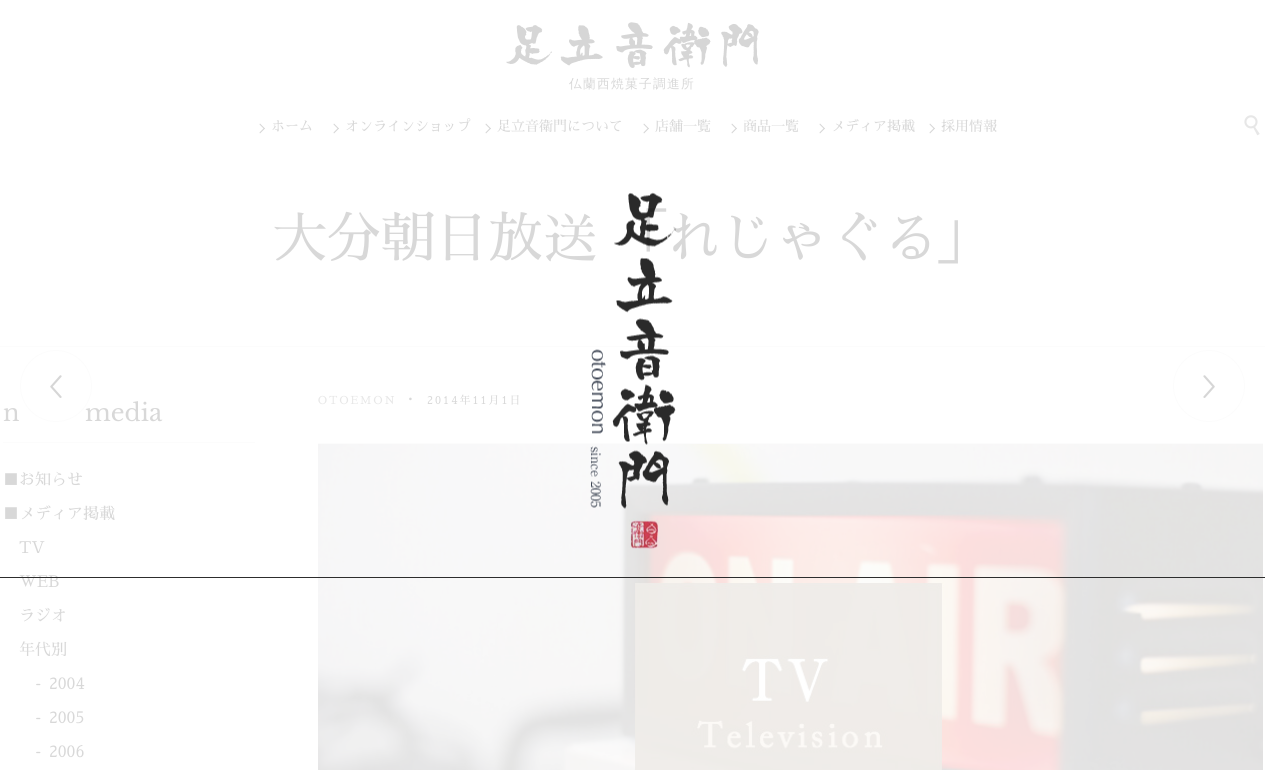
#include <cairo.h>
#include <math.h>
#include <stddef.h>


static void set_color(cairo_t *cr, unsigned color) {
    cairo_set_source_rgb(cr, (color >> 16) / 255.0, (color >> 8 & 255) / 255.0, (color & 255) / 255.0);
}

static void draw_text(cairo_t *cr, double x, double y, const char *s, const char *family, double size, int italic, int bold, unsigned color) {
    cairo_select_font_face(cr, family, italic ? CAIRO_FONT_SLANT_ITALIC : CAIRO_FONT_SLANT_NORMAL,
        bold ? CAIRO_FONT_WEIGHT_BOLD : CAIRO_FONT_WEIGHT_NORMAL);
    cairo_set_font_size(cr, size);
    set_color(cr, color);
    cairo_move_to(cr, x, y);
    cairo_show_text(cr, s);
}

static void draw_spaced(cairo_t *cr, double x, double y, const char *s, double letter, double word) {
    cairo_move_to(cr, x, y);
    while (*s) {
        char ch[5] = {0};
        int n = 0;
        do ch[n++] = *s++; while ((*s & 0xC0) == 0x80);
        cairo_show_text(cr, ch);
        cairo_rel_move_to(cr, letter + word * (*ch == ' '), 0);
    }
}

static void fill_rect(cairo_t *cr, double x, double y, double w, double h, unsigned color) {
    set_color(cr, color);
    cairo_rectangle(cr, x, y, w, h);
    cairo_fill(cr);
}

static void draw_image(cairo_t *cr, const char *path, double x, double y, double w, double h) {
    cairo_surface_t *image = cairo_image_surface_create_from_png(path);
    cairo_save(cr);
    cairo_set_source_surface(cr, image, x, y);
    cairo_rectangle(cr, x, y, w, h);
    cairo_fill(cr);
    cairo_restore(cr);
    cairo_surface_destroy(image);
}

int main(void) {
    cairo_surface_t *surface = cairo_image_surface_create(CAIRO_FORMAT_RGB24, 1265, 770);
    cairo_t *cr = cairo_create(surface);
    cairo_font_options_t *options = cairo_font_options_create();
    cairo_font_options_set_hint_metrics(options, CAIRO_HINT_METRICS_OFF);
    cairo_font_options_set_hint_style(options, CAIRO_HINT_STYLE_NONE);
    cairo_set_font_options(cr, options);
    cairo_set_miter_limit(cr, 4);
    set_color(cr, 0xFFFFFF);
    cairo_paint(cr);
    draw_image(cr, "assets/img1.png", 506, 22, 253, 46);
    cairo_select_font_face(cr, "WenQuanYi Zen Hei Medium", CAIRO_FONT_SLANT_NORMAL, CAIRO_FONT_WEIGHT_NORMAL);
    cairo_set_font_size(cr, 12.75);
    set_color(cr, 0xD8D8D8);
    draw_spaced(cr, 569, 88, "仏蘭西焼菓子調進所", 1.25, 0);
    set_color(cr, 0xD6D6D6);
    cairo_new_path(cr);
    cairo_move_to(cr, 260, 123.5);
    cairo_line_to(cr, 265, 128.5);
    cairo_line_to(cr, 264, 129);
    cairo_line_to(cr, 259.5, 124.5);
    cairo_close_path(cr);
    cairo_fill(cr);
    cairo_new_path(cr);
    cairo_move_to(cr, 264, 128);
    cairo_line_to(cr, 265, 128.5);
    cairo_line_to(cr, 260, 133.5);
    cairo_line_to(cr, 259.5, 132.5);
    cairo_close_path(cr);
    cairo_fill(cr);
    draw_text(cr, 271, 131, "ホーム", "Sawarabi Mincho", 14, 0, 0, 0xD8D8D8);
    set_color(cr, 0xD6D6D6);
    cairo_new_path(cr);
    cairo_move_to(cr, 334, 123.5);
    cairo_line_to(cr, 339, 128.5);
    cairo_line_to(cr, 338, 129);
    cairo_line_to(cr, 333.5, 124.5);
    cairo_close_path(cr);
    cairo_fill(cr);
    cairo_new_path(cr);
    cairo_move_to(cr, 338, 128);
    cairo_line_to(cr, 339, 128.5);
    cairo_line_to(cr, 334, 133.5);
    cairo_line_to(cr, 333.5, 132.5);
    cairo_close_path(cr);
    cairo_fill(cr);
    draw_text(cr, 345, 131, "オンラインショップ", "Sawarabi Mincho", 14, 0, 0, 0xD8D8D8);
    set_color(cr, 0xD6D6D6);
    cairo_new_path(cr);
    cairo_move_to(cr, 486, 123.5);
    cairo_line_to(cr, 491, 128.5);
    cairo_line_to(cr, 490, 129);
    cairo_line_to(cr, 485.5, 124.5);
    cairo_close_path(cr);
    cairo_fill(cr);
    cairo_new_path(cr);
    cairo_move_to(cr, 490, 128);
    cairo_line_to(cr, 491, 128.5);
    cairo_line_to(cr, 486, 133.5);
    cairo_line_to(cr, 485.5, 132.5);
    cairo_close_path(cr);
    cairo_fill(cr);
    draw_text(cr, 497, 131, "足立音衛門について", "Sawarabi Mincho", 14, 0, 0, 0xD8D8D8);
    set_color(cr, 0xD6D6D6);
    cairo_new_path(cr);
    cairo_move_to(cr, 644, 123.5);
    cairo_line_to(cr, 649, 128.5);
    cairo_line_to(cr, 648, 129);
    cairo_line_to(cr, 643.5, 124.5);
    cairo_close_path(cr);
    cairo_fill(cr);
    cairo_new_path(cr);
    cairo_move_to(cr, 648, 128);
    cairo_line_to(cr, 649, 128.5);
    cairo_line_to(cr, 644, 133.5);
    cairo_line_to(cr, 643.5, 132.5);
    cairo_close_path(cr);
    cairo_fill(cr);
    draw_text(cr, 655, 131, "店舗一覧", "Sawarabi Mincho", 14, 0, 0, 0xD8D8D8);
    set_color(cr, 0xD6D6D6);
    cairo_new_path(cr);
    cairo_move_to(cr, 732, 123.5);
    cairo_line_to(cr, 737, 128.5);
    cairo_line_to(cr, 736, 129);
    cairo_line_to(cr, 731.5, 124.5);
    cairo_close_path(cr);
    cairo_fill(cr);
    cairo_new_path(cr);
    cairo_move_to(cr, 736, 128);
    cairo_line_to(cr, 737, 128.5);
    cairo_line_to(cr, 732, 133.5);
    cairo_line_to(cr, 731.5, 132.5);
    cairo_close_path(cr);
    cairo_fill(cr);
    draw_text(cr, 743, 131, "商品一覧", "Sawarabi Mincho", 14, 0, 0, 0xD8D8D8);
    set_color(cr, 0xD6D6D6);
    cairo_new_path(cr);
    cairo_move_to(cr, 820, 123.5);
    cairo_line_to(cr, 825, 128.5);
    cairo_line_to(cr, 824, 129);
    cairo_line_to(cr, 819.5, 124.5);
    cairo_close_path(cr);
    cairo_fill(cr);
    cairo_new_path(cr);
    cairo_move_to(cr, 824, 128);
    cairo_line_to(cr, 825, 128.5);
    cairo_line_to(cr, 820, 133.5);
    cairo_line_to(cr, 819.5, 132.5);
    cairo_close_path(cr);
    cairo_fill(cr);
    draw_text(cr, 831, 131, "メディア掲載", "Sawarabi Mincho", 14, 0, 0, 0xD8D8D8);
    set_color(cr, 0xD6D6D6);
    cairo_new_path(cr);
    cairo_move_to(cr, 930, 123.5);
    cairo_line_to(cr, 935, 128.5);
    cairo_line_to(cr, 934, 129);
    cairo_line_to(cr, 929.5, 124.5);
    cairo_close_path(cr);
    cairo_fill(cr);
    cairo_new_path(cr);
    cairo_move_to(cr, 934, 128);
    cairo_line_to(cr, 935, 128.5);
    cairo_line_to(cr, 930, 133.5);
    cairo_line_to(cr, 929.5, 132.5);
    cairo_close_path(cr);
    cairo_fill(cr);
    draw_text(cr, 941, 131, "採用情報", "Sawarabi Mincho", 14, 0, 0, 0xD8D8D8);
    draw_image(cr, "assets/img2.png", 1244, 115, 16, 21);
    draw_image(cr, "assets/img4.png", 318, 444, 945, 326);
    draw_text(cr, 19, 587, "WEB", "Sawarabi Mincho", 16, 0, 0, 0xD8D8D8);
    cairo_set_source_rgba(cr, 0.929, 0.929, 0.929, 0.84);
    cairo_rectangle(cr, 0, 577, 1265, 1);
    cairo_fill(cr);
    fill_rect(cr, 0, 346, 1265, 1, 0xFCFCFC);
    draw_text(cr, 273, 257, "大分朝日放送 「れじゃぐる」", "Sawarabi Mincho", 54, 0, 0, 0xD8D8D8);
    fill_rect(cr, 318, 443, 945, 1, 0xFCFCFC);
    draw_image(cr, "assets/img3.png", 590, 192, 86, 357);
    cairo_set_source_rgba(cr, 0.039, 0.039, 0.039, 0.84);
    cairo_rectangle(cr, 0, 577, 1265, 1);
    cairo_fill(cr);
    cairo_set_font_size(cr, 11);
    set_color(cr, 0xE7E7E7);
    draw_spaced(cr, 318, 404, "OTOEMON", 2, 0);
    cairo_set_font_size(cr, 16);
    set_color(cr, 0xD8D8D8);
    draw_spaced(cr, 406, 404, "·", 2, 0);
    cairo_set_font_size(cr, 11);
    draw_spaced(cr, 427, 404, "2014年11月1日", 2, 0);
    fill_rect(cr, 3, 442, 252, 1, 0xFCFCFC);
    draw_text(cr, 3, 421, "n", "Libre Baskerville", 24, 0, 0, 0xD8D8D8);
    draw_text(cr, 85, 421, "media", "Libre Baskerville", 24, 0, 0, 0xD8D8D8);
    draw_text(cr, 3, 485, "■お知らせ", "Sawarabi Mincho", 16, 0, 0, 0xD8D8D8);
    draw_text(cr, 3, 519, "■メディア掲載", "Sawarabi Mincho", 16, 0, 0, 0xD8D8D8);
    draw_text(cr, 19, 553, "TV", "Sawarabi Mincho", 16, 0, 0, 0xD8D8D8);
    draw_text(cr, 19, 621, "ラジオ", "Sawarabi Mincho", 16, 0, 0, 0xD8D8D8);
    draw_text(cr, 19, 655, "年代別", "Sawarabi Mincho", 16, 0, 0, 0xD8D8D8);
    draw_text(cr, 35, 689, "-", "Varela Round", 16, 0, 0, 0xD8D8D8);
    draw_text(cr, 49, 689, "2004", "Sawarabi Mincho", 16, 0, 0, 0xD8D8D8);
    draw_text(cr, 35, 723, "-", "Varela Round", 16, 0, 0, 0xD8D8D8);
    draw_text(cr, 49, 723, "2005", "Sawarabi Mincho", 16, 0, 0, 0xD8D8D8);
    draw_text(cr, 35, 757, "-", "Varela Round", 16, 0, 0, 0xD8D8D8);
    draw_text(cr, 49, 757, "2006", "Sawarabi Mincho", 16, 0, 0, 0xD8D8D8);
    cairo_new_path(cr);
    cairo_arc(cr, 56, 386, 35.5, 0, 2 * M_PI);
    set_color(cr, 0xFCFCFC);
    cairo_set_line_width(cr, 1);
    cairo_stroke(cr);
    draw_image(cr, "assets/img5.png", 50, 375, 12, 23);
    cairo_arc(cr, 1209, 386, 35.5, 0, 2 * M_PI);
    cairo_stroke(cr);
    draw_image(cr, "assets/img6.png", 1203, 375, 12, 23);
    cairo_surface_write_to_png(surface, "output.png");
    cairo_font_options_destroy(options);
    cairo_destroy(cr);
    cairo_surface_destroy(surface);
    return 0;
}
